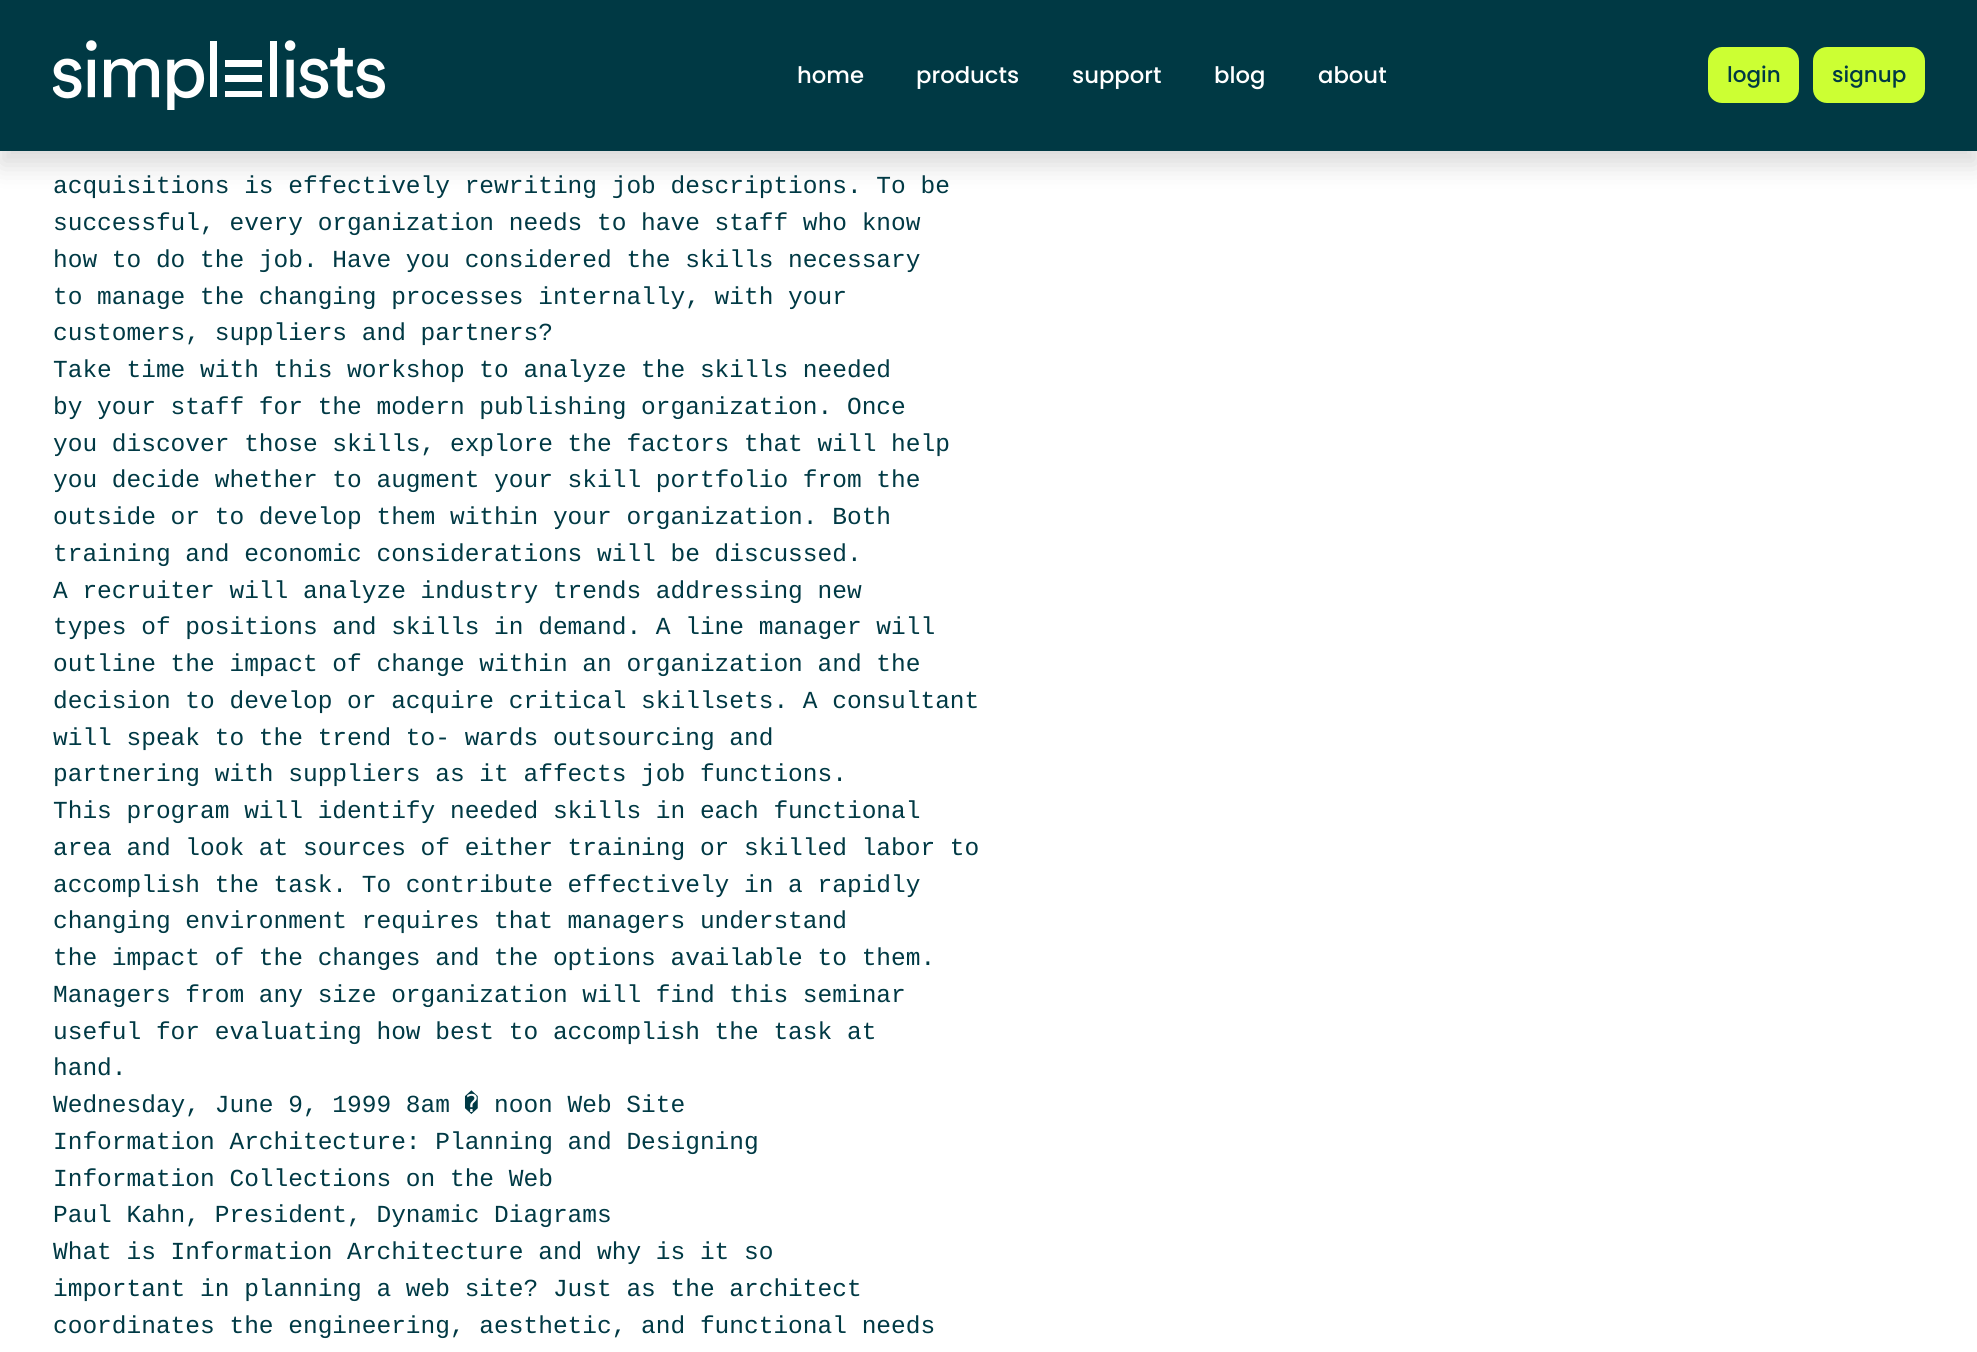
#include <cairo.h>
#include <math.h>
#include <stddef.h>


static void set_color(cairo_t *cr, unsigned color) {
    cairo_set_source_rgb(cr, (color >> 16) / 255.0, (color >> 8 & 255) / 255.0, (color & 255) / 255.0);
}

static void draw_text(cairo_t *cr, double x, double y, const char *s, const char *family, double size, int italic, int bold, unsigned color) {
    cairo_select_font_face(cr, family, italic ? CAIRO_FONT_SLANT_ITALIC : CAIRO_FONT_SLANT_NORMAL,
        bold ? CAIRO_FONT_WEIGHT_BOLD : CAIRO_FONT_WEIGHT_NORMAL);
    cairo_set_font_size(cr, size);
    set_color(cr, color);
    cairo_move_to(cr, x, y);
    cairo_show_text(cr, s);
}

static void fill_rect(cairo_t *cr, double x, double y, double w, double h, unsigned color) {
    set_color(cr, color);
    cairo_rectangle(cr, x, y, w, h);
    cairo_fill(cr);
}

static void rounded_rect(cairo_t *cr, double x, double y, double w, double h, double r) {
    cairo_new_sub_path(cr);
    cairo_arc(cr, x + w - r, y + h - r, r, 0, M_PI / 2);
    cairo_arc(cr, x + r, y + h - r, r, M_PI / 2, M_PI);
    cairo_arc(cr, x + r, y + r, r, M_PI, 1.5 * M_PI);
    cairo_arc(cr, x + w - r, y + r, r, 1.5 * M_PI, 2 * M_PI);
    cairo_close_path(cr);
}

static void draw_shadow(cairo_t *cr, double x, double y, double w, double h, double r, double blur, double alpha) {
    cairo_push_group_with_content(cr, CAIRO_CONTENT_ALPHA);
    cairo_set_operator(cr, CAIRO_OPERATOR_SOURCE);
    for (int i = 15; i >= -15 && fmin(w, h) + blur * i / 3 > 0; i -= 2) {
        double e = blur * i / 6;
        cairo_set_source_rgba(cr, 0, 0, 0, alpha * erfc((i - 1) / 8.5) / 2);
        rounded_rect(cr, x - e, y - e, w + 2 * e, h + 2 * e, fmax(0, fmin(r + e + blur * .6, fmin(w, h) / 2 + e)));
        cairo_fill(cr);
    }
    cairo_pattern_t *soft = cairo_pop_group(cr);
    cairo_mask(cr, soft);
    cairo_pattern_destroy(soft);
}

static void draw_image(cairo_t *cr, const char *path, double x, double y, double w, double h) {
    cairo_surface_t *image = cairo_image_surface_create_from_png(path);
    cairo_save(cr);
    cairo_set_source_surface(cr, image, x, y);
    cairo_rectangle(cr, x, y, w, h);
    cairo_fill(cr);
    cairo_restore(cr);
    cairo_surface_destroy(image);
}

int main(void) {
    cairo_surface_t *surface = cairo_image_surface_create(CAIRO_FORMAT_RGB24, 1977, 1352);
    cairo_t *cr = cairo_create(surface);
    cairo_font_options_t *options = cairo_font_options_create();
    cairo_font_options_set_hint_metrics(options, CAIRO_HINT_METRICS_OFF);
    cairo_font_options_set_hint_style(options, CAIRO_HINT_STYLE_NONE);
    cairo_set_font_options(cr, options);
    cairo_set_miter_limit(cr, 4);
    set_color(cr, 0xFFFFFF);
    cairo_paint(cr);
    set_color(cr, 0x000000);
    draw_shadow(cr, 0, 14, 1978, 151, 0, 13, 0.15);
    fill_rect(cr, 0, 0, 1977, 151, 0x003944);
    draw_image(cr, "assets/img1.png", 53, 40, 332, 70);
    draw_text(cr, 797, 83, "home", "Poppins Medium", 22.75, 0, 0, 0xFFFFFF);
    draw_text(cr, 916, 83, "products", "Poppins Medium", 22.75, 0, 0, 0xFFFFFF);
    draw_text(cr, 1072, 83, "support", "Poppins Medium", 22.75, 0, 0, 0xFFFFFF);
    draw_text(cr, 1214, 83, "blog", "Poppins Medium", 22.75, 0, 0, 0xFFFFFF);
    draw_text(cr, 1318, 83, "about", "Poppins Medium", 22.75, 0, 0, 0xFFFFFF);
    set_color(cr, 0xCCFF33);
    rounded_rect(cr, 1709, 48, 89, 54, 13);
    cairo_fill_preserve(cr);
    cairo_stroke(cr);
    draw_text(cr, 1727, 82, "login", "Poppins Medium", 21.5, 0, 0, 0x003944);
    set_color(cr, 0xCCFF33);
    rounded_rect(cr, 1814, 48, 110, 54, 13);
    cairo_fill_preserve(cr);
    cairo_stroke(cr);
    draw_text(cr, 1832, 82, "signup", "Poppins Medium", 21.5, 0, 0, 0x003944);
    draw_text(cr, 53, 193, "acquisitions is effectively rewriting job descriptions. To be", "Liberation Mono", 24.5, 0, 0, 0x003944);
    draw_text(cr, 53, 230, "successful, every organization needs to have staff who know", "Liberation Mono", 24.5, 0, 0, 0x003944);
    draw_text(cr, 53, 267, "how to do the job. Have you considered the skills necessary", "Liberation Mono", 24.5, 0, 0, 0x003944);
    draw_text(cr, 53, 304, "to manage the changing processes internally, with your", "Liberation Mono", 24.5, 0, 0, 0x003944);
    draw_text(cr, 53, 340, "customers, suppliers and partners?", "Liberation Mono", 24.5, 0, 0, 0x003944);
    draw_text(cr, 53, 377, "Take time with this workshop to analyze the skills needed", "Liberation Mono", 24.5, 0, 0, 0x003944);
    draw_text(cr, 53, 414, "by your staff for the modern publishing organization. Once", "Liberation Mono", 24.5, 0, 0, 0x003944);
    draw_text(cr, 53, 451, "you discover those skills, explore the factors that will help", "Liberation Mono", 24.5, 0, 0, 0x003944);
    draw_text(cr, 53, 487, "you decide whether to augment your skill portfolio from the", "Liberation Mono", 24.5, 0, 0, 0x003944);
    draw_text(cr, 53, 524, "outside or to develop them within your organization. Both", "Liberation Mono", 24.5, 0, 0, 0x003944);
    draw_text(cr, 53, 561, "training and economic considerations will be discussed.", "Liberation Mono", 24.5, 0, 0, 0x003944);
    draw_text(cr, 53, 598, "A recruiter will analyze industry trends addressing new", "Liberation Mono", 24.5, 0, 0, 0x003944);
    draw_text(cr, 53, 634, "types of positions and skills in demand. A line manager will", "Liberation Mono", 24.5, 0, 0, 0x003944);
    draw_text(cr, 53, 671, "outline the impact of change within an organization and the", "Liberation Mono", 24.5, 0, 0, 0x003944);
    draw_text(cr, 53, 708, "decision to develop or acquire critical skillsets. A consultant", "Liberation Mono", 24.5, 0, 0, 0x003944);
    draw_text(cr, 53, 745, "will speak to the trend to- wards outsourcing and", "Liberation Mono", 24.5, 0, 0, 0x003944);
    draw_text(cr, 53, 781, "partnering with suppliers as it affects job functions.", "Liberation Mono", 24.5, 0, 0, 0x003944);
    draw_text(cr, 53, 818, "This program will identify needed skills in each functional", "Liberation Mono", 24.5, 0, 0, 0x003944);
    draw_text(cr, 53, 855, "area and look at sources of either training or skilled labor to", "Liberation Mono", 24.5, 0, 0, 0x003944);
    draw_text(cr, 53, 892, "accomplish the task. To contribute effectively in a rapidly", "Liberation Mono", 24.5, 0, 0, 0x003944);
    draw_text(cr, 53, 928, "changing environment requires that managers understand", "Liberation Mono", 24.5, 0, 0, 0x003944);
    draw_text(cr, 53, 965, "the impact of the changes and the options available to them.", "Liberation Mono", 24.5, 0, 0, 0x003944);
    draw_text(cr, 53, 1002, "Managers from any size organization will find this seminar", "Liberation Mono", 24.5, 0, 0, 0x003944);
    draw_text(cr, 53, 1039, "useful for evaluating how best to accomplish the task at", "Liberation Mono", 24.5, 0, 0, 0x003944);
    draw_text(cr, 53, 1075, "hand.", "Liberation Mono", 24.5, 0, 0, 0x003944);
    cairo_save(cr);
    cairo_rectangle(cr, 53, 0, 1872, 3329);
    cairo_clip(cr);
    draw_text(cr, 53, 1112, "Wednesday, June 9, 1999 8am", "Liberation Mono", 24.5, 0, 0, 0x003944);
    cairo_restore(cr);
    draw_text(cr, 464, 1112, "�", "DejaVu Sans Mono", 24.5, 0, 0, 0x003944);
    draw_text(cr, 494, 1112, "noon Web Site", "Liberation Mono", 24.5, 0, 0, 0x003944);
    draw_text(cr, 53, 1149, "Information Architecture: Planning and Designing", "Liberation Mono", 24.5, 0, 0, 0x003944);
    draw_text(cr, 53, 1186, "Information Collections on the Web", "Liberation Mono", 24.5, 0, 0, 0x003944);
    draw_text(cr, 53, 1222, "Paul Kahn, President, Dynamic Diagrams", "Liberation Mono", 24.5, 0, 0, 0x003944);
    cairo_save(cr);
    cairo_rectangle(cr, 53, 0, 1872, 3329);
    cairo_clip(cr);
    draw_text(cr, 53, 1259, "What is Information Architecture and why is it so", "Liberation Mono", 24.5, 0, 0, 0x003944);
    cairo_restore(cr);
    draw_text(cr, 53, 1296, "important in planning a web site? Just as the architect", "Liberation Mono", 24.5, 0, 0, 0x003944);
    draw_text(cr, 53, 1333, "coordinates the engineering, aesthetic, and functional needs", "Liberation Mono", 24.5, 0, 0, 0x003944);
    cairo_surface_write_to_png(surface, "output.png");
    cairo_font_options_destroy(options);
    cairo_destroy(cr);
    cairo_surface_destroy(surface);
    return 0;
}
